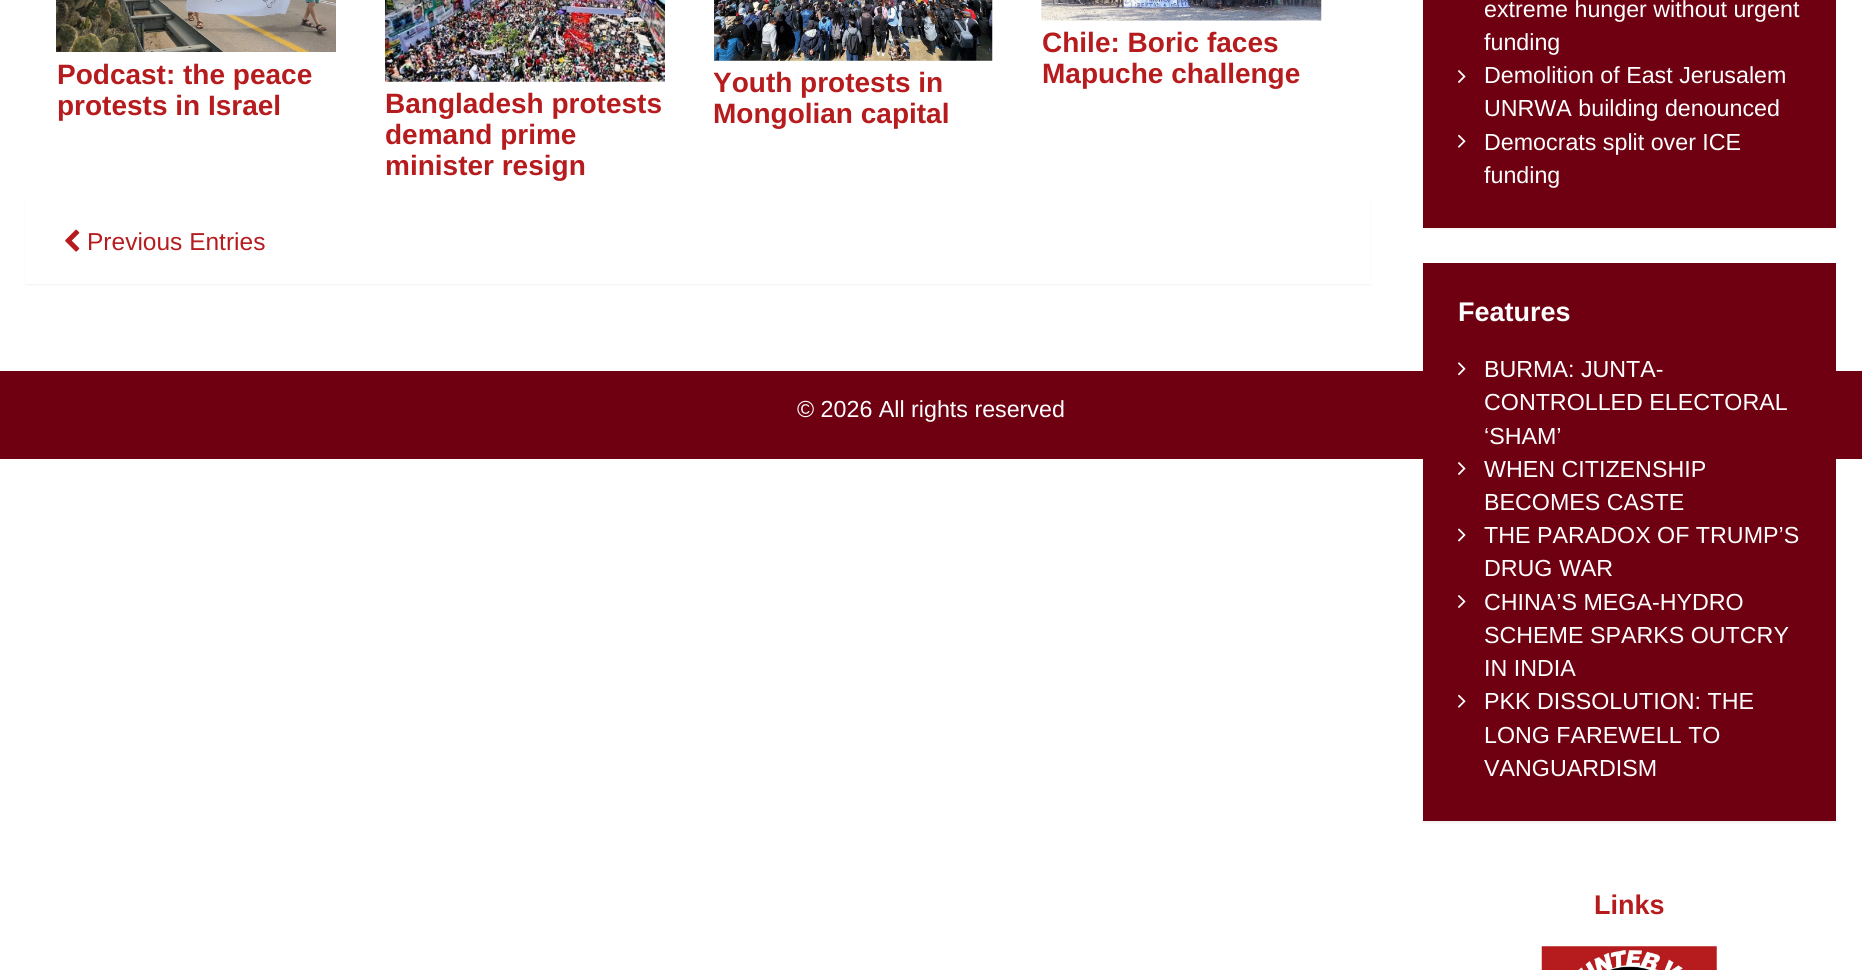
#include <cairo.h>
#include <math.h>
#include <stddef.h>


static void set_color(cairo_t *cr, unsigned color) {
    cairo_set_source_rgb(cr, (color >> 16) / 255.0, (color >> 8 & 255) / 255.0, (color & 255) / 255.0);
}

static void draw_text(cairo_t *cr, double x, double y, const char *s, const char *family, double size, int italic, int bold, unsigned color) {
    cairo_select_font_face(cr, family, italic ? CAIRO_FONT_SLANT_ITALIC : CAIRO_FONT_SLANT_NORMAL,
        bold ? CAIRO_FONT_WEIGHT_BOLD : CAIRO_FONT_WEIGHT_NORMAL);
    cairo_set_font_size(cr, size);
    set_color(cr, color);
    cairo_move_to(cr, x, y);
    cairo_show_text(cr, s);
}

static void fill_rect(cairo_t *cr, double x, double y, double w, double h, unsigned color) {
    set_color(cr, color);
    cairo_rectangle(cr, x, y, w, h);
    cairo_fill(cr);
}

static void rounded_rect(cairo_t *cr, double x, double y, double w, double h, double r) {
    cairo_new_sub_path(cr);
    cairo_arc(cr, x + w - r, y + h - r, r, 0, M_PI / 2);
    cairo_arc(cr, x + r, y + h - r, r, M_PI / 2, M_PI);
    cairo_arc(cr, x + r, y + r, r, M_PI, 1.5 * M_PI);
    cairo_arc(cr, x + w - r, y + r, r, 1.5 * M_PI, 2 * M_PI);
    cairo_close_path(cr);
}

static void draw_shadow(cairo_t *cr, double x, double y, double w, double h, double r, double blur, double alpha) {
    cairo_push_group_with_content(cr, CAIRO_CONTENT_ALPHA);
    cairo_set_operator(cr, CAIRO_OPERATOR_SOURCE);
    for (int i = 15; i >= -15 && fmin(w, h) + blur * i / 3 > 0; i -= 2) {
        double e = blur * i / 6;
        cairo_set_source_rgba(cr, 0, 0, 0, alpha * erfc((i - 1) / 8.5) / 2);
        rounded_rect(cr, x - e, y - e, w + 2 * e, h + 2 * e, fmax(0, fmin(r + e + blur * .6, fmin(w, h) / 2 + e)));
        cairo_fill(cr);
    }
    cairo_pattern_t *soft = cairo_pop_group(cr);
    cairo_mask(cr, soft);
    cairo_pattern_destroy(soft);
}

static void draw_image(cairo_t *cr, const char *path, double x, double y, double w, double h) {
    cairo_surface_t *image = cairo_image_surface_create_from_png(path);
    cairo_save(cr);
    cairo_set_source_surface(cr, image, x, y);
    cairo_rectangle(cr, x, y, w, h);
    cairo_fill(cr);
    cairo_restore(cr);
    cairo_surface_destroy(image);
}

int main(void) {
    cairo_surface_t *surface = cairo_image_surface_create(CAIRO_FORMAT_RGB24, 1862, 970);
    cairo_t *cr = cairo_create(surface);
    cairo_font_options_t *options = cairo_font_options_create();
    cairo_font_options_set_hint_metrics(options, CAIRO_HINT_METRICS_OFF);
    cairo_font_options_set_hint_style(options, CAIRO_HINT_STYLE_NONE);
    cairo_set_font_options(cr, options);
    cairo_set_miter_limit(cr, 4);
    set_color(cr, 0xFFFFFF);
    cairo_paint(cr);
    draw_image(cr, "assets/img1.png", 56, 0, 280, 52);
    draw_text(cr, 57, 84, "Podcast: the peace", "Liberation Sans", 28, 0, 1, 0xB61C1E);
    draw_text(cr, 57, 115, "protests in Israel", "Liberation Sans", 28, 0, 1, 0xB61C1E);
    draw_image(cr, "assets/img2.png", 385, 0, 280, 82);
    draw_text(cr, 385, 113, "Bangladesh protests", "Liberation Sans", 28, 0, 1, 0xB61C1E);
    draw_text(cr, 385, 144, "demand prime", "Liberation Sans", 28, 0, 1, 0xB61C1E);
    draw_text(cr, 385, 175, "minister resign", "Liberation Sans", 28, 0, 1, 0xB61C1E);
    draw_image(cr, "assets/img3.png", 714, 0, 279, 61);
    draw_text(cr, 713, 92, "Youth protests in", "Liberation Sans", 28, 0, 1, 0xB61C1E);
    draw_text(cr, 713, 123, "Mongolian capital", "Liberation Sans", 28, 0, 1, 0xB61C1E);
    draw_image(cr, "assets/img4.png", 1041, 0, 281, 21);
    draw_text(cr, 1042, 52, "Chile: Boric faces", "Liberation Sans", 28, 0, 1, 0xB61C1E);
    draw_text(cr, 1042, 83, "Mapuche challenge", "Liberation Sans", 28, 0, 1, 0xB61C1E);
    set_color(cr, 0x000000);
    draw_shadow(cr, 26, 201, 1344, 84, 0, 1, 0.06);
    fill_rect(cr, 26, 200, 1344, 84, 0xFFFFFF);
    draw_image(cr, "assets/img5.png", 65, 229, 15, 23);
    draw_text(cr, 87, 250, "Previous Entries", "Liberation Sans", 24.5, 0, 0, 0xB61C1E);
    set_color(cr, 0x000000);
    draw_shadow(cr, 1423, -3, 413, 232, 0, 1, 0.06);
    fill_rect(cr, 1423, 0, 413, 228, 0x6F0011);
    draw_text(cr, 1484, 17, "extreme hunger without urgent", "Liberation Sans", 23.25, 0, 0, 0xFFFFFF);
    draw_text(cr, 1484, 50, "funding", "Liberation Sans", 23.25, 0, 0, 0xFFFFFF);
    draw_image(cr, "assets/img6.png", 1458, 70, 8, 13);
    draw_text(cr, 1484, 83, "Demolition of East Jerusalem", "Liberation Sans", 23.25, 0, 0, 0xFFFFFF);
    draw_text(cr, 1484, 116, "UNRWA building denounced", "Liberation Sans", 23.25, 0, 0, 0xFFFFFF);
    draw_image(cr, "assets/img7.png", 1458, 134, 8, 14);
    draw_text(cr, 1484, 150, "Democrats split over ICE", "Liberation Sans", 23.25, 0, 0, 0xFFFFFF);
    draw_text(cr, 1484, 183, "funding", "Liberation Sans", 23.25, 0, 0, 0xFFFFFF);
    fill_rect(cr, 0, 371, 1862, 88, 0x6F0011);
    set_color(cr, 0x000000);
    draw_shadow(cr, 1423, 264, 413, 559, 0, 1, 0.06);
    fill_rect(cr, 1423, 263, 413, 558, 0x6F0011);
    draw_text(cr, 1458, 321, "Features", "Liberation Sans", 27, 0, 1, 0xFFFFFF);
    draw_image(cr, "assets/img8.png", 1458, 362, 8, 14);
    draw_text(cr, 1484, 377, "BURMA: JUNTA-", "Liberation Sans", 23.25, 0, 0, 0xFFFFFF);
    draw_text(cr, 1484, 410, "CONTROLLED ELECTORAL", "Liberation Sans", 23.25, 0, 0, 0xFFFFFF);
    draw_text(cr, 1484, 444, "‘SHAM’", "Liberation Sans", 23.25, 0, 0, 0xFFFFFF);
    draw_image(cr, "assets/img6.png", 1458, 462, 8, 13);
    draw_text(cr, 1484, 477, "WHEN CITIZENSHIP", "Liberation Sans", 23.25, 0, 0, 0xFFFFFF);
    draw_text(cr, 1484, 510, "BECOMES CASTE", "Liberation Sans", 23.25, 0, 0, 0xFFFFFF);
    draw_image(cr, "assets/img9.png", 1458, 528, 8, 14);
    draw_text(cr, 1484, 543, "THE PARADOX OF TRUMP’S", "Liberation Sans", 23.25, 0, 0, 0xFFFFFF);
    draw_text(cr, 1484, 576, "DRUG WAR", "Liberation Sans", 23.25, 0, 0, 0xFFFFFF);
    draw_image(cr, "assets/img6.png", 1458, 595, 8, 13);
    draw_text(cr, 1484, 610, "CHINA’S MEGA-HYDRO", "Liberation Sans", 23.25, 0, 0, 0xFFFFFF);
    draw_text(cr, 1484, 643, "SCHEME SPARKS OUTCRY", "Liberation Sans", 23.25, 0, 0, 0xFFFFFF);
    draw_text(cr, 1484, 676, "IN INDIA", "Liberation Sans", 23.25, 0, 0, 0xFFFFFF);
    draw_image(cr, "assets/img7.png", 1458, 694, 8, 14);
    draw_text(cr, 1484, 709, "PKK DISSOLUTION: THE", "Liberation Sans", 23.25, 0, 0, 0xFFFFFF);
    draw_text(cr, 1484, 743, "LONG FAREWELL TO", "Liberation Sans", 23.25, 0, 0, 0xFFFFFF);
    draw_text(cr, 1484, 776, "VANGUARDISM", "Liberation Sans", 23.25, 0, 0, 0xFFFFFF);
    draw_text(cr, 1594, 914, "Links", "Liberation Sans", 27, 0, 1, 0xB61C1E);
    draw_image(cr, "assets/img10.png", 1541, 946, 176, 24);
    draw_text(cr, 797, 417, "© 2026 All rights reserved", "Liberation Sans", 23.25, 0, 0, 0xFFFFFF);
    cairo_surface_write_to_png(surface, "output.png");
    cairo_font_options_destroy(options);
    cairo_destroy(cr);
    cairo_surface_destroy(surface);
    return 0;
}
